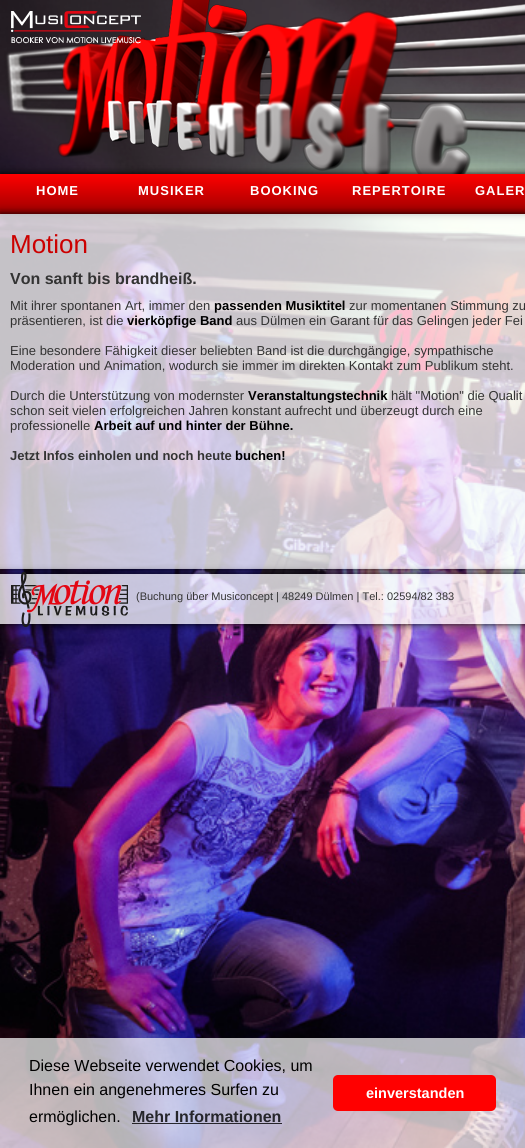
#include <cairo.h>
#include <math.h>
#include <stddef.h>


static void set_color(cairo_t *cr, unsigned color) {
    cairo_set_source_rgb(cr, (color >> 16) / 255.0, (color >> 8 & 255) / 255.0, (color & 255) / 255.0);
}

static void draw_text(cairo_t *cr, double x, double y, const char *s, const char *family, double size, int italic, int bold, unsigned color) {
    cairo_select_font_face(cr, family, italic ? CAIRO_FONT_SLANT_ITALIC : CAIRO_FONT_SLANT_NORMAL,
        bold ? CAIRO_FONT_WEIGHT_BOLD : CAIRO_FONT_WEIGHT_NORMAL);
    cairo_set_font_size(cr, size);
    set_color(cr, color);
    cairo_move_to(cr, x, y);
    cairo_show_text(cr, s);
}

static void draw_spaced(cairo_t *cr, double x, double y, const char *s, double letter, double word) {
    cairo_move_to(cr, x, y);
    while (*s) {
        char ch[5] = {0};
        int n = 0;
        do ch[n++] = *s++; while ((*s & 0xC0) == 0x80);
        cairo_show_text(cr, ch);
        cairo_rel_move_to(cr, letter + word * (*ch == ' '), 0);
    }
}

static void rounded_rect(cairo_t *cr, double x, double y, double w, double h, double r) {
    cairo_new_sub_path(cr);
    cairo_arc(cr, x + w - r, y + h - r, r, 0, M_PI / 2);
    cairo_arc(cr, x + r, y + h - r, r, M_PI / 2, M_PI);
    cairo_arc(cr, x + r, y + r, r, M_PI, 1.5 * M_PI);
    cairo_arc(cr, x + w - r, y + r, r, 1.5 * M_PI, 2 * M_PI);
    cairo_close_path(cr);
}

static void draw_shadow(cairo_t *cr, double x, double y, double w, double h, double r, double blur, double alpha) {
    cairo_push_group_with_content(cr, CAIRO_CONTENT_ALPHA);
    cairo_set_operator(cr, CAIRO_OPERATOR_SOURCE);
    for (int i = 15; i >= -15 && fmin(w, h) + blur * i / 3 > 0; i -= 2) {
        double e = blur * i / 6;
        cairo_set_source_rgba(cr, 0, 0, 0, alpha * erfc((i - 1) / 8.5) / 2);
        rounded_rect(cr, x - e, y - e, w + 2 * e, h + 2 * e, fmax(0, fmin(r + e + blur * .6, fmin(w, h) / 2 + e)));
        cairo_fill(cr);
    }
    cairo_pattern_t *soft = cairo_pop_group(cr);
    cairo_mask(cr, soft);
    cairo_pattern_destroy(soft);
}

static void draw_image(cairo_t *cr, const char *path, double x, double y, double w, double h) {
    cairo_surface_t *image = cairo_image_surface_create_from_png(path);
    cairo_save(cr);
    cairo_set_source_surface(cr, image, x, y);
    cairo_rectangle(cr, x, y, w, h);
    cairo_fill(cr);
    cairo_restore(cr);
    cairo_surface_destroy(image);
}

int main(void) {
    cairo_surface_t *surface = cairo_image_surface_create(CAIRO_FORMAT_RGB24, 525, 1148);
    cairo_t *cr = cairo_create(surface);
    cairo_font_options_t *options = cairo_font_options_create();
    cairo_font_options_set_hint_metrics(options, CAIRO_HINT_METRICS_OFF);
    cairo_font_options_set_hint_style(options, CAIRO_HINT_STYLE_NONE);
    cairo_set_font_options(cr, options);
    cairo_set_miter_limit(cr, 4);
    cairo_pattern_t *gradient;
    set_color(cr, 0xFFFFFF);
    cairo_paint(cr);
    draw_image(cr, "assets/img1.png", 0, 0, 525, 1148);
    draw_image(cr, "assets/img2.png", 0, 0, 525, 174);
    draw_image(cr, "assets/img3.png", 11, 11, 130, 33);
    set_color(cr, 0x000000);
    draw_shadow(cr, 0, 174, 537, 40, 0, 4, 1);
    gradient = cairo_pattern_create_linear(400, 174, 400, 214);
    cairo_pattern_add_color_stop_rgba(gradient, 0, 1, 0, 0, 1);
    cairo_pattern_add_color_stop_rgba(gradient, 1, 0.616, 0, 0, 1);
    cairo_set_source(cr, gradient);
    cairo_pattern_destroy(gradient);
    cairo_rectangle(cr, 0, 174, 525, 40);
    cairo_fill(cr);
    cairo_select_font_face(cr, "Liberation Sans", CAIRO_FONT_SLANT_NORMAL, CAIRO_FONT_WEIGHT_BOLD);
    cairo_set_font_size(cr, 13);
    set_color(cr, 0xFFFFFF);
    draw_spaced(cr, 36, 195, "HOME", 1, 0);
    draw_spaced(cr, 138, 195, "MUSIKER", 1, 0);
    draw_spaced(cr, 250, 195, "BOOKING", 1, 0);
    draw_spaced(cr, 352, 195, "REPERTOIRE", 1, 0);
    draw_spaced(cr, 475, 195, "GALER", 1, 0);
    cairo_save(cr);
    cairo_set_fill_rule(cr, CAIRO_FILL_RULE_EVEN_ODD);
    cairo_new_path(cr);
    cairo_move_to(cr, 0, 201);
    cairo_line_to(cr, 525, 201);
    cairo_line_to(cr, 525, 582);
    cairo_line_to(cr, 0, 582);
    cairo_close_path(cr);
    cairo_move_to(cr, 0, 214);
    cairo_line_to(cr, 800, 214);
    cairo_line_to(cr, 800, 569);
    cairo_line_to(cr, 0, 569);
    cairo_close_path(cr);
    cairo_clip(cr);
    set_color(cr, 0x000000);
    draw_shadow(cr, 0, 214, 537, 355, 0, 4, 1);
    cairo_restore(cr);
    cairo_set_source_rgba(cr, 1, 1, 1, 0.75);
    cairo_rectangle(cr, 0, 214, 525, 355);
    cairo_fill(cr);
    draw_text(cr, 10, 253, "Motion", "Liberation Sans", 26, 0, 0, 0xCC0000);
    draw_text(cr, 10, 284, "Von sanft bis brandheiß.", "Liberation Sans", 16, 0, 1, 0x333333);
    draw_text(cr, 10, 310, "Mit ihrer spontanen Art, immer den", "Liberation Sans", 13, 0, 0, 0x333333);
    draw_text(cr, 214, 310, "passenden Musiktitel", "Liberation Sans", 13, 0, 1, 0x000000);
    draw_text(cr, 349, 310, "zur momentanen Stimmung zu", "Liberation Sans", 13, 0, 0, 0x333333);
    draw_text(cr, 10, 325, "präsentieren, ist die", "Liberation Sans", 13, 0, 0, 0x333333);
    draw_text(cr, 127, 325, "vierköpfige Band", "Liberation Sans", 13, 0, 1, 0x000000);
    draw_text(cr, 236, 325, "aus Dülmen ein Garant für das Gelingen jeder Fei", "Liberation Sans", 13, 0, 0, 0x333333);
    draw_text(cr, 10, 355, "Eine besondere Fähigkeit dieser beliebten Band ist die durchgängige, sympathische", "Liberation Sans", 13, 0, 0, 0x333333);
    draw_text(cr, 10, 370, "Moderation und Animation, wodurch sie immer im direkten Kontakt zum Publikum steht.", "Liberation Sans", 13, 0, 0, 0x333333);
    draw_text(cr, 10, 400, "Durch die Unterstützung von modernster", "Liberation Sans", 13, 0, 0, 0x333333);
    draw_text(cr, 248, 400, "Veranstaltungstechnik", "Liberation Sans", 13, 0, 1, 0x000000);
    draw_text(cr, 391, 400, "hält \"Motion\" die Qualit", "Liberation Sans", 13, 0, 0, 0x333333);
    draw_text(cr, 10, 415, "schon seit vielen erfolgreichen Jahren konstant aufrecht und überzeugt durch eine", "Liberation Sans", 13, 0, 0, 0x333333);
    draw_text(cr, 10, 430, "professionelle", "Liberation Sans", 13, 0, 0, 0x333333);
    draw_text(cr, 94, 430, "Arbeit auf und hinter der Bühne.", "Liberation Sans", 13, 0, 1, 0x000000);
    draw_text(cr, 10, 460, "Jetzt Infos einholen und noch heute", "Liberation Sans", 13, 0, 1, 0x333333);
    draw_text(cr, 235, 460, "buchen!", "Liberation Sans", 13, 0, 1, 0x000000);
    cairo_save(cr);
    cairo_set_fill_rule(cr, CAIRO_FILL_RULE_EVEN_ODD);
    cairo_new_path(cr);
    cairo_move_to(cr, 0, 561);
    cairo_line_to(cr, 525, 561);
    cairo_line_to(cr, 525, 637);
    cairo_line_to(cr, 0, 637);
    cairo_close_path(cr);
    cairo_move_to(cr, 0, 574);
    cairo_line_to(cr, 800, 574);
    cairo_line_to(cr, 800, 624);
    cairo_line_to(cr, 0, 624);
    cairo_close_path(cr);
    cairo_clip(cr);
    set_color(cr, 0x000000);
    draw_shadow(cr, 0, 574, 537, 50, 0, 4, 1);
    cairo_restore(cr);
    cairo_set_source_rgba(cr, 1, 1, 1, 0.75);
    cairo_rectangle(cr, 0, 574, 525, 50);
    cairo_fill(cr);
    draw_image(cr, "assets/img4.png", 11, 572, 117, 55);
    draw_text(cr, 136, 600, "(Buchung über Musiconcept | 48249 Dülmen | Tel.: 02594/82 383", "Liberation Sans", 11, 0, 0, 0x333333);
    cairo_set_source_rgba(cr, 1, 1, 1, 0.7);
    cairo_rectangle(cr, 0, 1038, 525, 110);
    cairo_fill(cr);
    draw_text(cr, 29, 1071, "Diese Webseite verwendet Cookies, um", "Liberation Sans", 16, 0, 0, 0x000000);
    draw_text(cr, 29, 1095, "Ihnen ein angenehmeres Surfen zu", "Liberation Sans", 16, 0, 0, 0x000000);
    draw_text(cr, 29, 1122, "ermöglichen.", "Liberation Sans", 16, 0, 0, 0x000000);
    draw_text(cr, 132, 1122, "Mehr Informationen", "Liberation Sans", 16, 0, 1, 0x26262B);
    cairo_set_source_rgba(cr, 0, 0, 0, 0.8);
    cairo_rectangle(cr, 132, 1123, 150, 1);
    cairo_fill(cr);
    set_color(cr, 0xFF0000);
    rounded_rect(cr, 333, 1075, 163, 36, 5);
    cairo_fill(cr);
    draw_text(cr, 366, 1098, "einverstanden", "Liberation Sans", 14.5, 0, 1, 0xFFFFFF);
    cairo_surface_write_to_png(surface, "output.png");
    cairo_font_options_destroy(options);
    cairo_destroy(cr);
    cairo_surface_destroy(surface);
    return 0;
}
